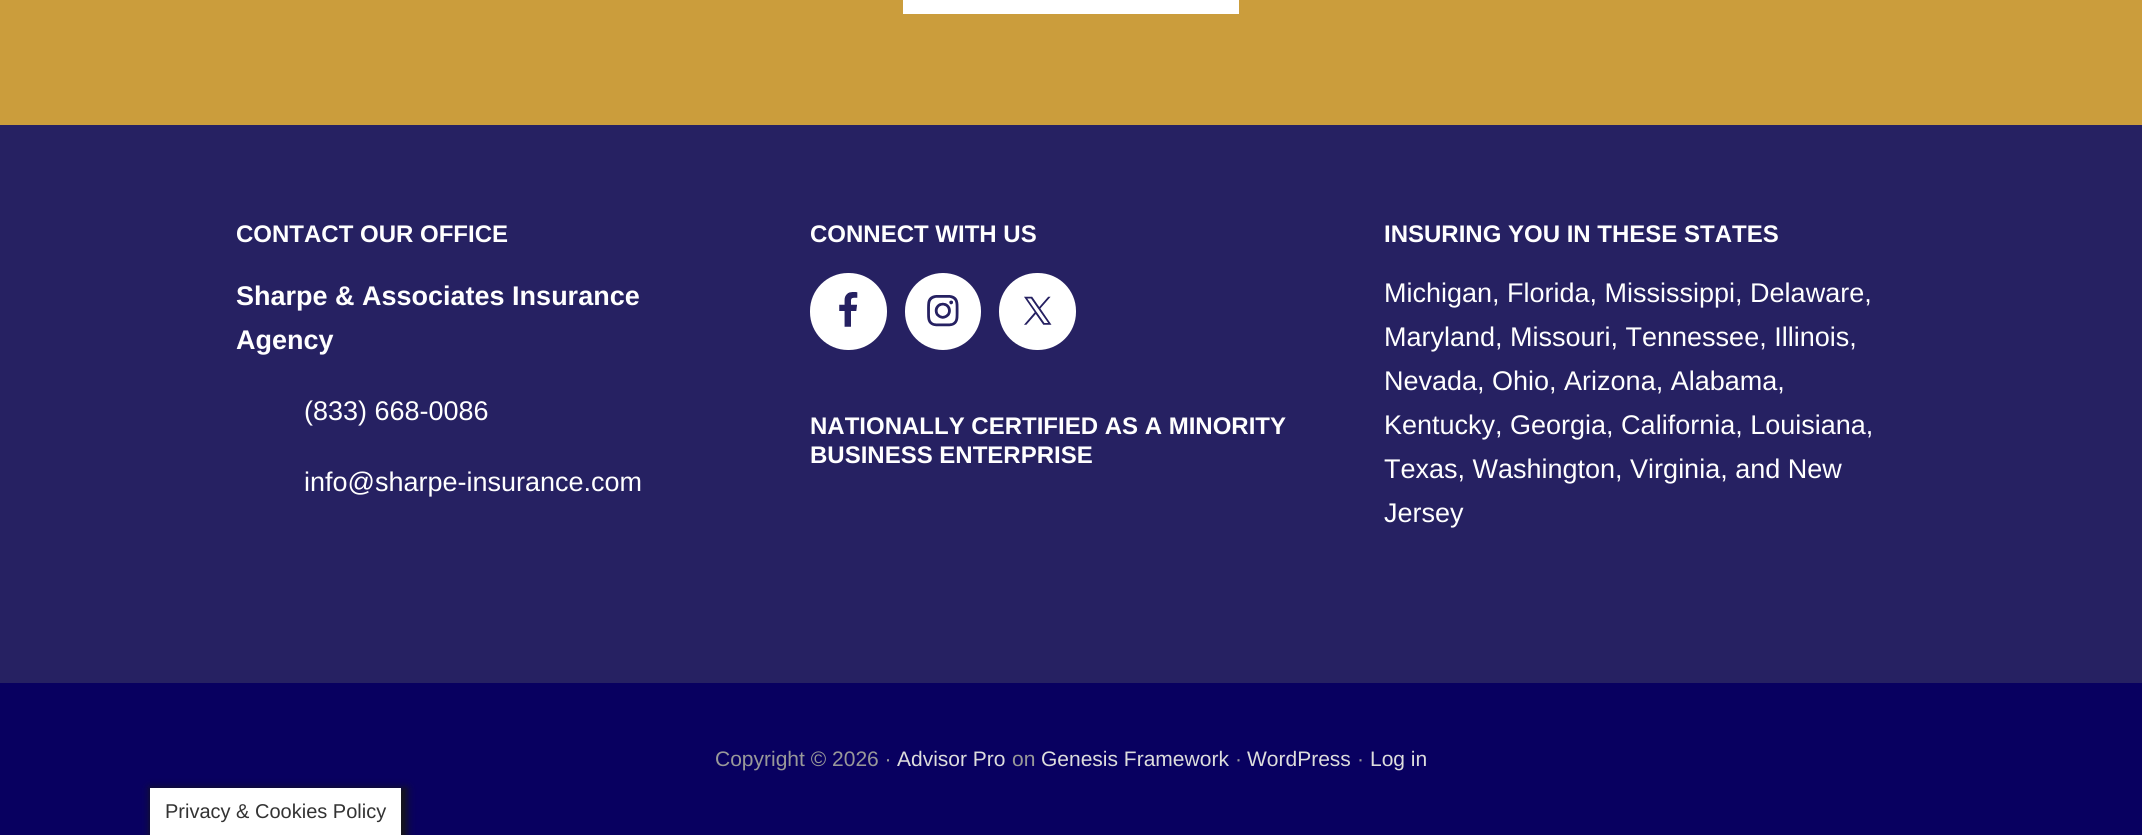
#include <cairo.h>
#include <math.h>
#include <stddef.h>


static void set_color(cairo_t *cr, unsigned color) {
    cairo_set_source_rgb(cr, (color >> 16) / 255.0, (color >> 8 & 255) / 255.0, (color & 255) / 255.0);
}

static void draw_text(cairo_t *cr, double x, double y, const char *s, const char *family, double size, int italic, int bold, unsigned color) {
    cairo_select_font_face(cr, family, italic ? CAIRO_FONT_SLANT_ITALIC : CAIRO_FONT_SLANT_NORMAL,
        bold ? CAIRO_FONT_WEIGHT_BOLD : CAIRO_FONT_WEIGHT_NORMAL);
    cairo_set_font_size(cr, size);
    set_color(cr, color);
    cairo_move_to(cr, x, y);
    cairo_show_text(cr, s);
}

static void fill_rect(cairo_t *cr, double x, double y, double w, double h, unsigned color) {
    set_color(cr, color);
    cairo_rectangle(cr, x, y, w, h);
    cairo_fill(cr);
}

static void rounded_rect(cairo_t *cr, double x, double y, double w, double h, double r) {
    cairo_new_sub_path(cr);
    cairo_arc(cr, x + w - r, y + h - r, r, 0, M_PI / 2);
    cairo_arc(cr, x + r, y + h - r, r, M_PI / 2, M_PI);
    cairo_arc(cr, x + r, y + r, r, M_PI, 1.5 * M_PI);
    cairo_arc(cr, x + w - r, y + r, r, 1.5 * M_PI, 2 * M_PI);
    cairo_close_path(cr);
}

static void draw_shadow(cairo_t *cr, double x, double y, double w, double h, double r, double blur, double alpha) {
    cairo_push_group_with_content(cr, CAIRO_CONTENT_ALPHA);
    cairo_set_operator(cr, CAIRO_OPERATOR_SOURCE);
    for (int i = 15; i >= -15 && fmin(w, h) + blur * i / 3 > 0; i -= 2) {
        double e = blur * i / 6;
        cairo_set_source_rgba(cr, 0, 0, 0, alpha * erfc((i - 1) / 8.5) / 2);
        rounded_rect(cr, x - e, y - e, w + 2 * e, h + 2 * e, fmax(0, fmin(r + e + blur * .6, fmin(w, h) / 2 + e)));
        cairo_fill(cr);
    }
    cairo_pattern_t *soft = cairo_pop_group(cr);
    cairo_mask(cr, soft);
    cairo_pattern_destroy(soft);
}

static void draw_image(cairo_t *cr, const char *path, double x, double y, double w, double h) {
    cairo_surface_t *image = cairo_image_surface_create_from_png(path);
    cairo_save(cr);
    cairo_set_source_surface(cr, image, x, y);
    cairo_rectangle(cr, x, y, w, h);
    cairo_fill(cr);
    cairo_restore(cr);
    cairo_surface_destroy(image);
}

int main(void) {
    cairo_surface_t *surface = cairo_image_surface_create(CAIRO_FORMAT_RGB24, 2142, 835);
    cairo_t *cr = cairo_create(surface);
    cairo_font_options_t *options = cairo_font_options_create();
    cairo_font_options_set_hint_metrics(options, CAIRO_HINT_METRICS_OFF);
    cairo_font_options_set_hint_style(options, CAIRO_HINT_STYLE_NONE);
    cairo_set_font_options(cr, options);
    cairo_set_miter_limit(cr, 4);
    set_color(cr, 0xCB9D3C);
    cairo_paint(cr);
    fill_rect(cr, 903, 0, 336, 14, 0xFFFFFF);
    fill_rect(cr, 0, 125, 2142, 558, 0x262162);
    draw_text(cr, 236, 242, "CONTACT OUR OFFICE", "Liberation Sans", 24, 0, 1, 0xFFFFFF);
    draw_text(cr, 236, 305, "Sharpe & Associates Insurance", "Liberation Sans", 27, 0, 1, 0xFFFFFF);
    draw_text(cr, 236, 349, "Agency", "Liberation Sans", 27, 0, 1, 0xFFFFFF);
    draw_text(cr, 304, 420, "(833) 668-0086", "Liberation Sans", 27, 0, 0, 0xFFFFFF);
    draw_text(cr, 304, 491, "info@sharpe-insurance.com", "Liberation Sans", 27, 0, 0, 0xFFFFFF);
    draw_text(cr, 810, 242, "CONNECT WITH US", "Liberation Sans", 24, 0, 1, 0xFFFFFF);
    rounded_rect(cr, 810, 273, 77, 77, 38);
    cairo_fill(cr);
    draw_image(cr, "assets/img1.png", 839, 292, 19, 35);
    rounded_rect(cr, 905, 273, 76, 77, 38);
    cairo_fill(cr);
    draw_image(cr, "assets/img2.png", 927, 295, 32, 32);
    rounded_rect(cr, 999, 273, 77, 77, 38);
    cairo_fill(cr);
    draw_image(cr, "assets/img3.png", 1024, 296, 28, 29);
    draw_text(cr, 810, 434, "NATIONALLY CERTIFIED AS A MINORITY", "Liberation Sans", 24, 0, 1, 0xFFFFFF);
    draw_text(cr, 810, 463, "BUSINESS ENTERPRISE", "Liberation Sans", 24, 0, 1, 0xFFFFFF);
    draw_text(cr, 1384, 242, "INSURING YOU IN THESE STATES", "Liberation Sans", 24, 0, 1, 0xFFFFFF);
    draw_text(cr, 1384, 302, "Michigan, Florida, Mississippi, Delaware,", "Liberation Sans", 27, 0, 0, 0xFFFFFF);
    draw_text(cr, 1384, 346, "Maryland, Missouri, Tennessee, Illinois,", "Liberation Sans", 27, 0, 0, 0xFFFFFF);
    draw_text(cr, 1384, 390, "Nevada, Ohio, Arizona, Alabama,", "Liberation Sans", 27, 0, 0, 0xFFFFFF);
    draw_text(cr, 1384, 434, "Kentucky, Georgia, California, Louisiana,", "Liberation Sans", 27, 0, 0, 0xFFFFFF);
    draw_text(cr, 1384, 478, "Texas, Washington, Virginia, and New", "Liberation Sans", 27, 0, 0, 0xFFFFFF);
    draw_text(cr, 1384, 522, "Jersey", "Liberation Sans", 27, 0, 0, 0xFFFFFF);
    fill_rect(cr, 0, 683, 2142, 152, 0x080060);
    draw_text(cr, 715, 766, "Copyright © 2026 ·", "Liberation Sans", 21, 0, 0, 0x999999);
    draw_text(cr, 897, 766, "Advisor Pro", "Liberation Sans", 21, 0, 0, 0xDDDDDD);
    draw_text(cr, 1012, 766, "on", "Liberation Sans", 21, 0, 0, 0x999999);
    draw_text(cr, 1041, 766, "Genesis Framework", "Liberation Sans", 21, 0, 0, 0xDDDDDD);
    draw_text(cr, 1235, 766, "·", "Liberation Sans", 21, 0, 0, 0x999999);
    draw_text(cr, 1247, 766, "WordPress", "Liberation Sans", 21, 0, 0, 0xDDDDDD);
    draw_text(cr, 1357, 766, "·", "Liberation Sans", 21, 0, 0, 0x999999);
    draw_text(cr, 1370, 766, "Log in", "Liberation Sans", 21, 0, 0, 0xDDDDDD);
    set_color(cr, 0x161616);
    draw_shadow(cr, 150, 788, 257, 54, 0, 4, 1);
    fill_rect(cr, 150, 788, 251, 47, 0xFFFFFF);
    draw_text(cr, 165, 818, "Privacy & Cookies Policy", "Liberation Sans", 20, 0, 0, 0x333333);
    cairo_surface_write_to_png(surface, "output.png");
    cairo_font_options_destroy(options);
    cairo_destroy(cr);
    cairo_surface_destroy(surface);
    return 0;
}
